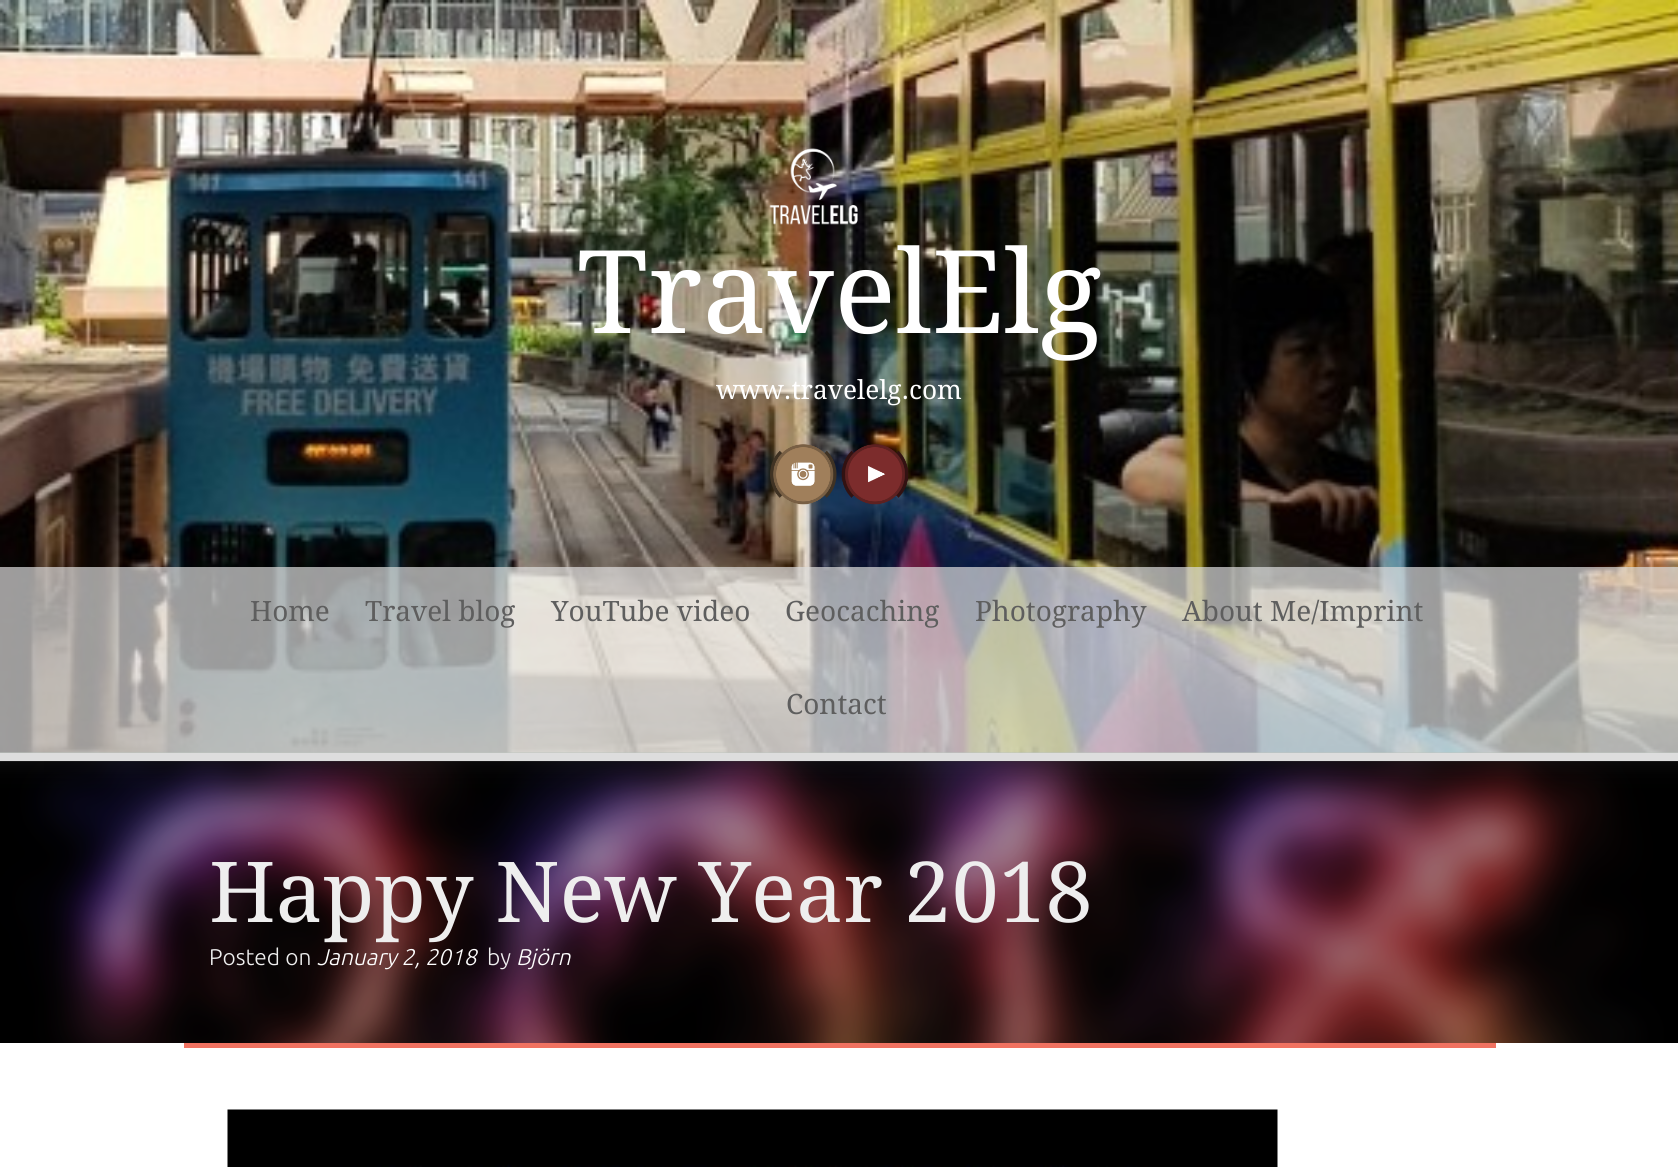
#include <cairo.h>
#include <math.h>
#include <stddef.h>


static void set_color(cairo_t *cr, unsigned color) {
    cairo_set_source_rgb(cr, (color >> 16) / 255.0, (color >> 8 & 255) / 255.0, (color & 255) / 255.0);
}

static void draw_text(cairo_t *cr, double x, double y, const char *s, const char *family, double size, int italic, int bold, unsigned color) {
    cairo_select_font_face(cr, family, italic ? CAIRO_FONT_SLANT_ITALIC : CAIRO_FONT_SLANT_NORMAL,
        bold ? CAIRO_FONT_WEIGHT_BOLD : CAIRO_FONT_WEIGHT_NORMAL);
    cairo_set_font_size(cr, size);
    set_color(cr, color);
    cairo_move_to(cr, x, y);
    cairo_show_text(cr, s);
}

static void fill_rect(cairo_t *cr, double x, double y, double w, double h, unsigned color) {
    set_color(cr, color);
    cairo_rectangle(cr, x, y, w, h);
    cairo_fill(cr);
}

static void draw_image(cairo_t *cr, const char *path, double x, double y, double w, double h) {
    cairo_surface_t *image = cairo_image_surface_create_from_png(path);
    cairo_save(cr);
    cairo_set_source_surface(cr, image, x, y);
    cairo_rectangle(cr, x, y, w, h);
    cairo_fill(cr);
    cairo_restore(cr);
    cairo_surface_destroy(image);
}

int main(void) {
    cairo_surface_t *surface = cairo_image_surface_create(CAIRO_FORMAT_RGB24, 1678, 1167);
    cairo_t *cr = cairo_create(surface);
    cairo_font_options_t *options = cairo_font_options_create();
    cairo_font_options_set_hint_metrics(options, CAIRO_HINT_METRICS_OFF);
    cairo_font_options_set_hint_style(options, CAIRO_HINT_STYLE_NONE);
    cairo_set_font_options(cr, options);
    cairo_set_miter_limit(cr, 4);
    set_color(cr, 0x79907D);
    cairo_paint(cr);
    draw_image(cr, "assets/img1.png", 0, 0, 1678, 753);
    draw_image(cr, "assets/img2.png", 769, 148, 89, 77);
    draw_text(cr, 577, 333, "TravelElg", "Droid Serif", 115.5, 0, 0, 0xFFFFFF);
    draw_text(cr, 716, 399, "www.travelelg.com", "Droid Serif", 26.25, 0, 0, 0xFFFFFF);
    draw_image(cr, "assets/img3.png", 770, 444, 67, 61);
    draw_image(cr, "assets/img4.png", 841, 444, 68, 61);
    cairo_set_source_rgba(cr, 0.867, 0.867, 0.867, 0.7);
    cairo_rectangle(cr, 0, 567, 1678, 186);
    cairo_fill(cr);
    fill_rect(cr, 0, 753, 1678, 8, 0xDDDDDD);
    draw_text(cr, 250, 621, "Home", "Droid Serif", 28, 0, 0, 0x5E5E5E);
    draw_text(cr, 365, 621, "Travel blog", "Droid Serif", 28, 0, 0, 0x5E5E5E);
    draw_text(cr, 551, 621, "YouTube video", "Droid Serif", 28, 0, 0, 0x5E5E5E);
    draw_text(cr, 785, 621, "Geocaching", "Droid Serif", 28, 0, 0, 0x5E5E5E);
    draw_text(cr, 975, 621, "Photography", "Droid Serif", 28, 0, 0, 0x5E5E5E);
    draw_text(cr, 1182, 621, "About Me/Imprint", "Droid Serif", 28, 0, 0, 0x5E5E5E);
    draw_text(cr, 786, 714, "Contact", "Droid Serif", 28, 0, 0, 0x5E5E5E);
    fill_rect(cr, 0, 761, 1678, 23, 0x444444);
    draw_image(cr, "assets/img5.png", 0, 761, 1678, 282);
    cairo_set_source_rgba(cr, 0, 0, 0, 0.1);
    cairo_rectangle(cr, 44, 761, 1566, 282);
    cairo_fill(cr);
    draw_text(cr, 209, 922, "Happy New Year 2018", "Droid Serif", 84, 0, 0, 0xEEEEEE);
    draw_text(cr, 209, 965, "Posted on", "Ubuntu Light", 22.75, 0, 0, 0xEEEEEE);
    draw_text(cr, 317, 965, "January 2, 2018", "Ubuntu Light", 22.75, 1, 0, 0xFFFFFF);
    draw_text(cr, 487, 965, "by", "Ubuntu Light", 22.75, 0, 0, 0xEEEEEE);
    draw_text(cr, 516, 965, "Björn", "Ubuntu Light", 22.75, 1, 0, 0xFFFFFF);
    fill_rect(cr, 0, 1043, 1678, 124, 0xFFFFFF);
    fill_rect(cr, 184, 1043, 1312, 5, 0xF07261);
    draw_image(cr, "assets/img6.png", 227, 1109, 1051, 58);
    cairo_surface_write_to_png(surface, "output.png");
    cairo_font_options_destroy(options);
    cairo_destroy(cr);
    cairo_surface_destroy(surface);
    return 0;
}
